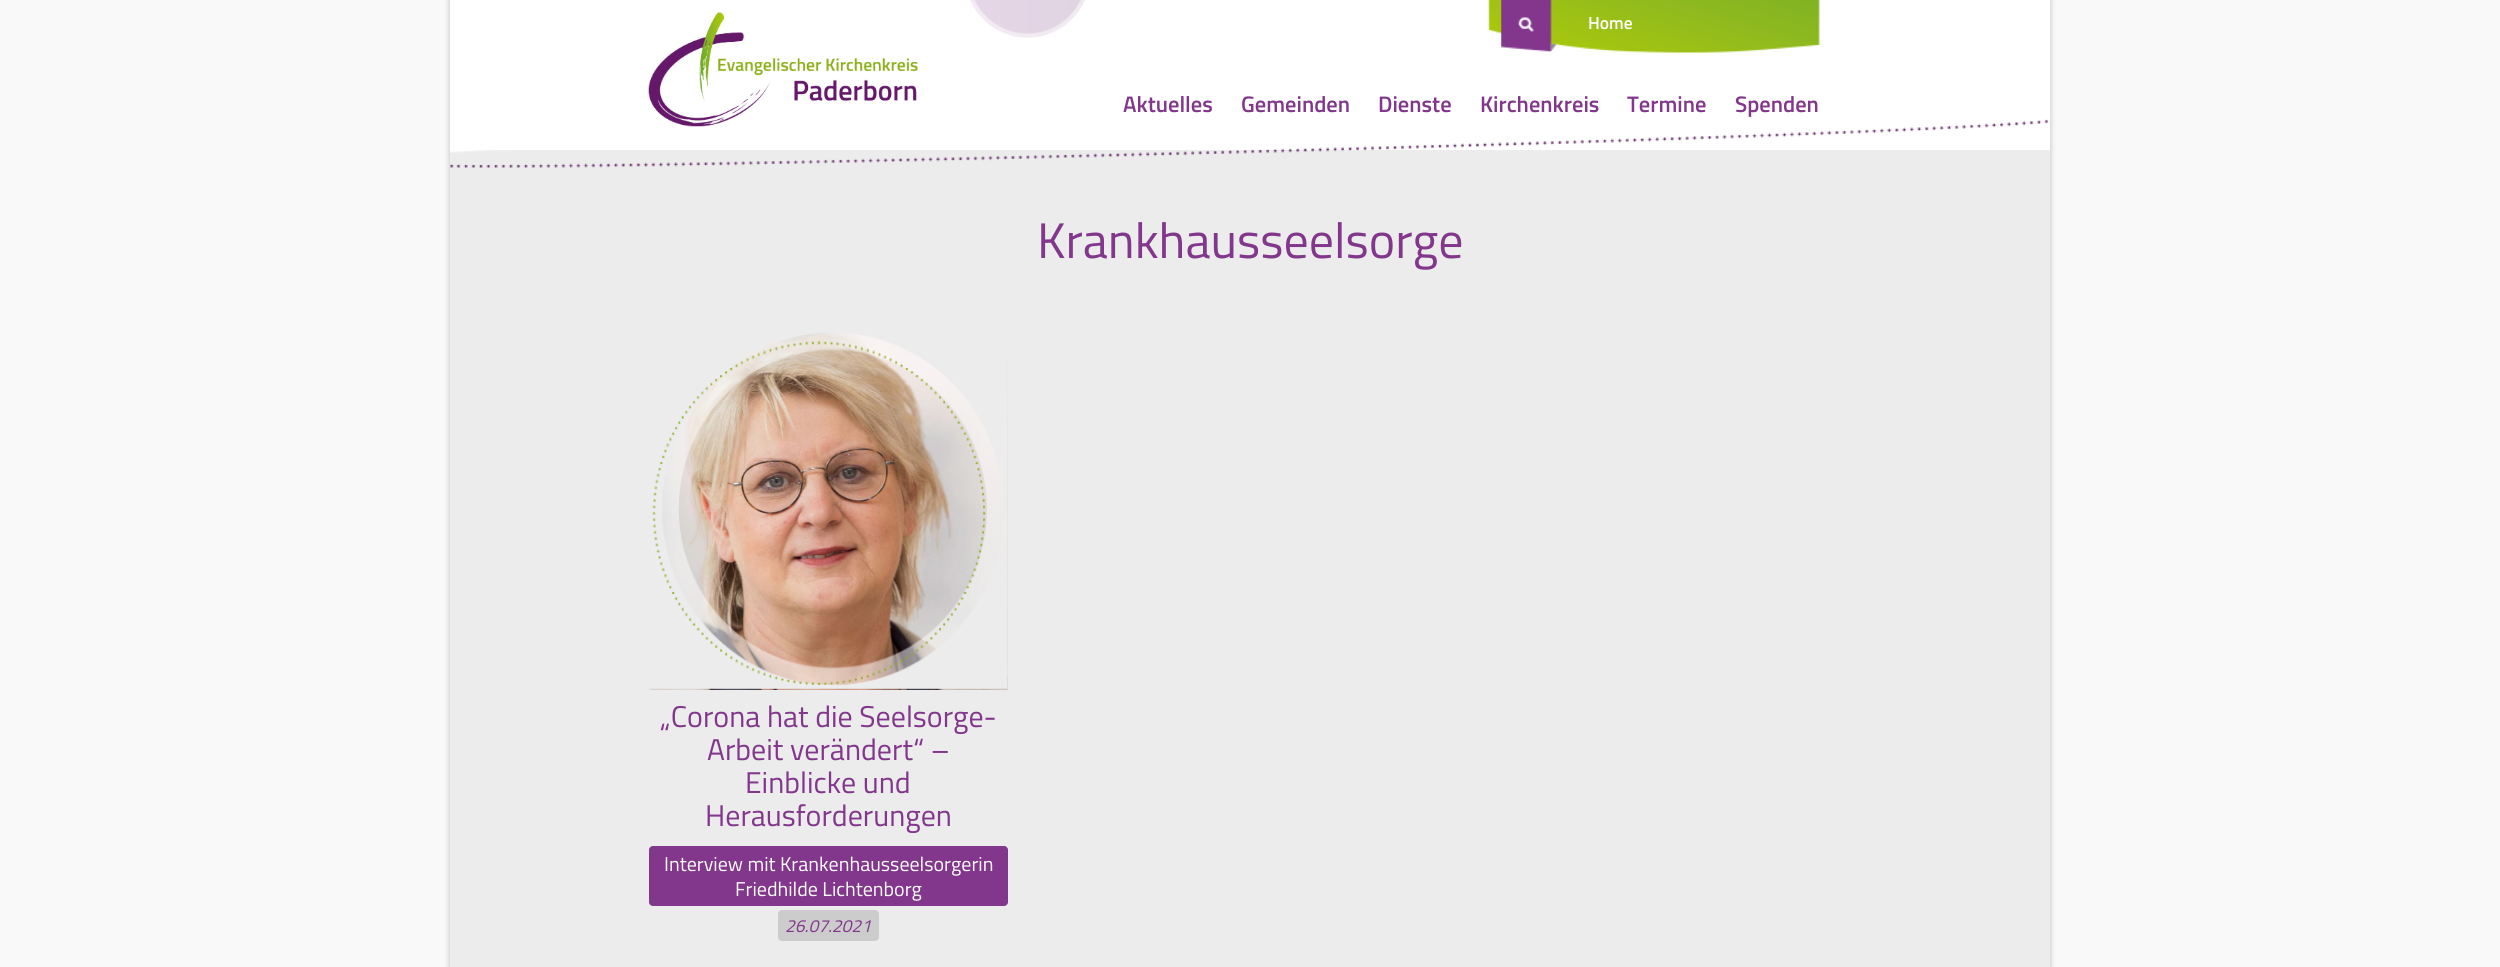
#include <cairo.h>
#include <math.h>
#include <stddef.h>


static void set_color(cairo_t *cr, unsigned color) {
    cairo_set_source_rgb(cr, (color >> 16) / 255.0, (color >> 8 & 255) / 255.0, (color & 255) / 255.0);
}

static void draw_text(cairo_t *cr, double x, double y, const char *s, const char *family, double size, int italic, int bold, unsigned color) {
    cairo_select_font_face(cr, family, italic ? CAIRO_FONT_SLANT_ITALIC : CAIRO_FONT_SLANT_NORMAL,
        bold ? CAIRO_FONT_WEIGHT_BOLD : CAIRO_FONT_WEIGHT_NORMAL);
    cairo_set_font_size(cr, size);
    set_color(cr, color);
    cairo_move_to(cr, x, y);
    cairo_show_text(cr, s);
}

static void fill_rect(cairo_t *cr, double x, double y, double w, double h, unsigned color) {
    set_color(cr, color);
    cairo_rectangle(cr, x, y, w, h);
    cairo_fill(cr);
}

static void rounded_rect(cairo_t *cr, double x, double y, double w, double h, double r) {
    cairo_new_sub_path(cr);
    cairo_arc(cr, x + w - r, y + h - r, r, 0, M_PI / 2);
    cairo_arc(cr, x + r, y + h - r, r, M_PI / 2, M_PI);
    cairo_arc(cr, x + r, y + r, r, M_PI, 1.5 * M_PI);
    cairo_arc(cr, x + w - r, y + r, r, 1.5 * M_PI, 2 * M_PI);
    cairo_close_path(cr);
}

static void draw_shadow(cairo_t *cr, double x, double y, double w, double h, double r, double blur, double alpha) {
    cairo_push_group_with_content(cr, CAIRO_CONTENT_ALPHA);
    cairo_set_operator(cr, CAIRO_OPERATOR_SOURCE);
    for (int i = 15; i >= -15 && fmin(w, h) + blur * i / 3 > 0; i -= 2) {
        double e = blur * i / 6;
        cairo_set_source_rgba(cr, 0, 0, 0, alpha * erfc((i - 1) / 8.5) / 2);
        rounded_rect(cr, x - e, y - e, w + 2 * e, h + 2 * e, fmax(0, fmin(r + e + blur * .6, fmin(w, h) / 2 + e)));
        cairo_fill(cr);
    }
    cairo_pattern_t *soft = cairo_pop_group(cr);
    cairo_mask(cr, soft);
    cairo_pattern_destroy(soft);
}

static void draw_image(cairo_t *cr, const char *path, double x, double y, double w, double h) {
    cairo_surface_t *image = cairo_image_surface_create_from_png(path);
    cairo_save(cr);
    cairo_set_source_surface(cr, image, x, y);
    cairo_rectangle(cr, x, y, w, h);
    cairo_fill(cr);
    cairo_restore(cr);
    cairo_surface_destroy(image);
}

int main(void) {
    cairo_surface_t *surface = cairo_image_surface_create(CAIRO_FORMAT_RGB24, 2500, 967);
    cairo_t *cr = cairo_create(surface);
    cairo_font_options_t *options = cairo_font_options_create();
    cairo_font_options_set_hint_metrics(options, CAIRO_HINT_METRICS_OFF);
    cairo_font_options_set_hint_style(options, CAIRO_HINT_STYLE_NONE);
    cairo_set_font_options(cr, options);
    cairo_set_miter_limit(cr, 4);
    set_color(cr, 0xF9F9F9);
    cairo_paint(cr);
    set_color(cr, 0x000000);
    draw_shadow(cr, 450, 0, 1600, 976, 0, 3, 0.25);
    fill_rect(cr, 450, 150, 1600, 817, 0xECECEC);
    fill_rect(cr, 450, 0, 1600, 150, 0xFFFFFF);
    draw_image(cr, "assets/img1.png", 970, 0, 115, 38);
    draw_image(cr, "assets/img2.png", 1488, 0, 332, 53);
    draw_image(cr, "assets/img3.png", 1501, 0, 56, 52);
    draw_text(cr, 1588, 29, "Home", "Titillium Web SemiBold", 17.5, 0, 0, 0xFFFFFF);
    draw_image(cr, "assets/img5.png", 450, 119, 1599, 49);
    draw_image(cr, "assets/img4.png", 648, 12, 270, 115);
    draw_text(cr, 1123, 112, "Aktuelles", "Titillium Web SemiBold", 22.5, 0, 0, 0x82368C);
    draw_text(cr, 1241, 112, "Gemeinden", "Titillium Web SemiBold", 22.5, 0, 0, 0x82368C);
    draw_text(cr, 1378, 112, "Dienste", "Titillium Web SemiBold", 22.5, 0, 0, 0x82368C);
    draw_text(cr, 1480, 112, "Kirchenkreis", "Titillium Web SemiBold", 22.5, 0, 0, 0x82368C);
    draw_text(cr, 1627, 112, "Termine", "Titillium Web SemiBold", 22.5, 0, 0, 0x82368C);
    draw_text(cr, 1735, 112, "Spenden", "Titillium Web SemiBold", 22.5, 0, 0, 0x82368C);
    draw_text(cr, 1037, 258, "Krankhausseelsorge", "Titillium Web", 50, 0, 0, 0x82368C);
    draw_image(cr, "assets/img6.png", 649, 330, 359, 360);
    draw_image(cr, "assets/img7.png", 649, 330, 359, 359);
    draw_text(cr, 660, 727, "„Corona hat die Seelsorge-", "Titillium Web", 30, 0, 0, 0x82368C);
    draw_text(cr, 707, 760, "Arbeit verändert“ –", "Titillium Web", 30, 0, 0, 0x82368C);
    draw_text(cr, 745, 793, "Einblicke und", "Titillium Web", 30, 0, 0, 0x82368C);
    draw_text(cr, 705, 826, "Herausforderungen", "Titillium Web", 30, 0, 0, 0x82368C);
    rounded_rect(cr, 649, 846, 359, 60, 4);
    cairo_fill(cr);
    draw_text(cr, 664, 871, "Interview mit Krankenhausseelsorgerin", "Titillium Web", 20, 0, 0, 0xFFFFFF);
    draw_text(cr, 735, 896, "Friedhilde Lichtenborg", "Titillium Web", 20, 0, 0, 0xFFFFFF);
    set_color(cr, 0xCCCCCC);
    rounded_rect(cr, 778, 910, 101, 31, 4);
    cairo_fill(cr);
    draw_text(cr, 785, 932, "26.07.2021", "Titillium Web", 17.5, 1, 0, 0x82368C);
    cairo_surface_write_to_png(surface, "output.png");
    cairo_font_options_destroy(options);
    cairo_destroy(cr);
    cairo_surface_destroy(surface);
    return 0;
}
